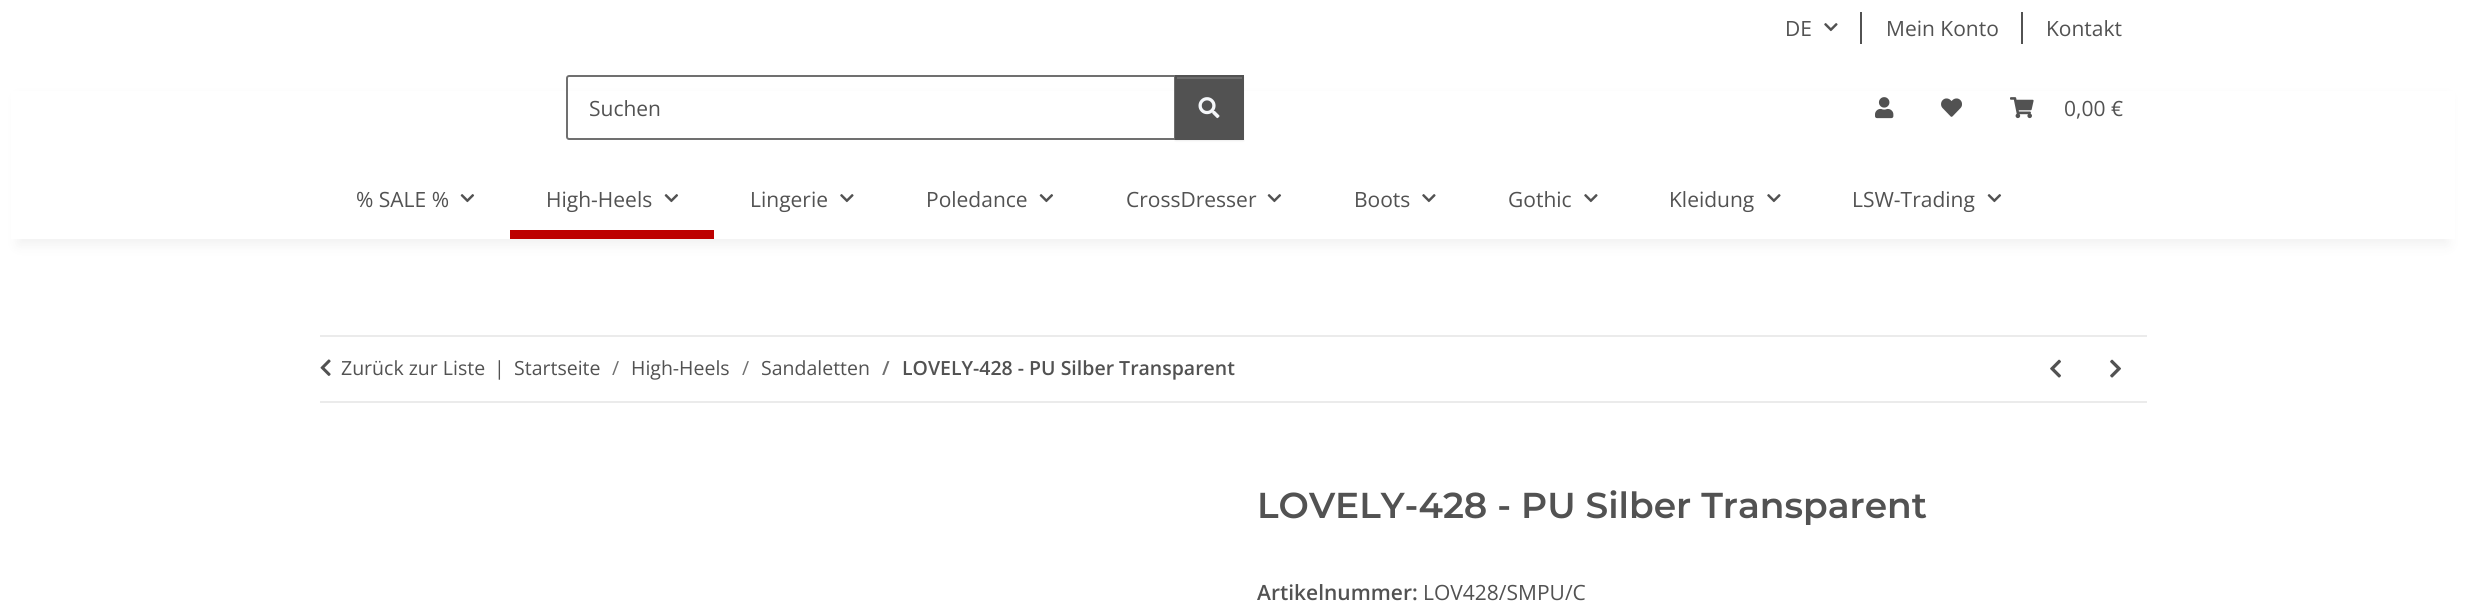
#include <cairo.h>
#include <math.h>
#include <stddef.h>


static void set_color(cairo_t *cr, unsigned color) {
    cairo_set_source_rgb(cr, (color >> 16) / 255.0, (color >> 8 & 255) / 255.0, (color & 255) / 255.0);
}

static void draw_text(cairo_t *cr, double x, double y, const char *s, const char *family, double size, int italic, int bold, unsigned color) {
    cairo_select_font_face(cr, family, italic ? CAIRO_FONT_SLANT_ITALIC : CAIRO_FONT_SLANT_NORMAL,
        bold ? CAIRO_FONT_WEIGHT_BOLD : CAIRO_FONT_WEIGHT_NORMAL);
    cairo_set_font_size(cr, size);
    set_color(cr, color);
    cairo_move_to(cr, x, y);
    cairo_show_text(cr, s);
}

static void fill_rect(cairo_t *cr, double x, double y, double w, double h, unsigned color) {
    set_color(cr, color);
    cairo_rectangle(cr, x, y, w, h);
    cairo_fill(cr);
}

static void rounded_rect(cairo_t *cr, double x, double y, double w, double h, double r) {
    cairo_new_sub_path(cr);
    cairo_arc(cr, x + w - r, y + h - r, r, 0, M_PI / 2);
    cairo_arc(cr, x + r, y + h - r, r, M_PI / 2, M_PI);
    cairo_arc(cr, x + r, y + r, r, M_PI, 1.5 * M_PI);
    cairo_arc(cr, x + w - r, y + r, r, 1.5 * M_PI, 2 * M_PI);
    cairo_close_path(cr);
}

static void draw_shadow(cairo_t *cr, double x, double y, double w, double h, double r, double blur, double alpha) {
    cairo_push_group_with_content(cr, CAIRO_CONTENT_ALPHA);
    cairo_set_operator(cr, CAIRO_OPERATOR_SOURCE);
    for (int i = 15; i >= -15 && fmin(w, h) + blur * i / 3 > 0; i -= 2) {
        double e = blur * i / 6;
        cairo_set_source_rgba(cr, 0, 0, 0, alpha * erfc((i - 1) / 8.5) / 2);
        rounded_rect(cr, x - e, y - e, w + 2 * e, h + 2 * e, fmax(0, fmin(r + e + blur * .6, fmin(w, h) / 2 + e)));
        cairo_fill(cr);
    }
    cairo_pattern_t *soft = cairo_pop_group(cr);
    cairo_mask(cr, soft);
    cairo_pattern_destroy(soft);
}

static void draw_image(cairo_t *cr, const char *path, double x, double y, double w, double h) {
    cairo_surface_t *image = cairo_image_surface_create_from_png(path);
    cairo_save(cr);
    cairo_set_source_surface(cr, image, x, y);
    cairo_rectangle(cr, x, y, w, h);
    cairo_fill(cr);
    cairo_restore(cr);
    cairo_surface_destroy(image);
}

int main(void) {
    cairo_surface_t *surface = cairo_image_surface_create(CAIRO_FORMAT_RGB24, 2465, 608);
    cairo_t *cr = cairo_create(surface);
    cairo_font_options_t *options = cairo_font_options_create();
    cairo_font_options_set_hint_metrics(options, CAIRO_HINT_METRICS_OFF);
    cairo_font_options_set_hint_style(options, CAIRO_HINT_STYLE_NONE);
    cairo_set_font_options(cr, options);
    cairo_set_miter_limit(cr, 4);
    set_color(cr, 0xFFFFFF);
    cairo_paint(cr);
    draw_text(cr, 1785, 36, "DE", "Open Sans", 21, 0, 0, 0x525252);
    draw_image(cr, "assets/img1.png", 1824, 23, 14, 9);
    fill_rect(cr, 1860, 12, 2, 32, 0x525252);
    draw_text(cr, 1886, 36, "Mein Konto", "Open Sans", 21, 0, 0, 0x525252);
    fill_rect(cr, 2021, 12, 2, 32, 0x525252);
    draw_text(cr, 2046, 36, "Kontakt", "Open Sans", 21, 0, 0, 0x525252);
    set_color(cr, 0x000000);
    draw_shadow(cr, 18, 98, 2430, 147, 0, 7, 0.06);
    fill_rect(cr, 11, 91, 2444, 148, 0xFFFFFF);
    cairo_new_path(cr);
    cairo_move_to(cr, 569, 76);
    cairo_line_to(cr, 1175, 76);
    cairo_line_to(cr, 1175, 139);
    cairo_line_to(cr, 569, 139);
    cairo_curve_to(cr, 568, 139, 567, 138, 567, 137);
    cairo_line_to(cr, 567, 78);
    cairo_curve_to(cr, 567, 77, 568, 76, 569, 76);
    cairo_close_path(cr);
    set_color(cr, 0x707070);
    cairo_stroke(cr);
    draw_text(cr, 589, 116, "Suchen", "Open Sans", 21, 0, 0, 0x525252);
    set_color(cr, 0x000000);
    draw_shadow(cr, 1175, 77, 69, 64, 0, 1, 0.07);
    fill_rect(cr, 1177, 79, 65, 59, 0x525252);
    fill_rect(cr, 1176, 77, 66, 2, 0x6C6C6C);
    cairo_rectangle(cr, 1176, 76, 67, 63);
    set_color(cr, 0x525252);
    cairo_stroke(cr);
    draw_image(cr, "assets/img2.png", 1198, 97, 22, 22);
    draw_image(cr, "assets/img3.png", 1875, 97, 19, 22);
    draw_image(cr, "assets/img4.png", 1941, 98, 21, 19);
    draw_image(cr, "assets/img5.png", 2010, 97, 24, 22);
    draw_text(cr, 2064, 116, "0,00 €", "Open Sans", 21, 0, 0, 0x525252);
    draw_text(cr, 356, 207, "% SALE %", "Open Sans", 21, 0, 0, 0x525252);
    draw_image(cr, "assets/img6.png", 460, 194, 15, 9);
    draw_text(cr, 546, 207, "High-Heels", "Open Sans", 21, 0, 0, 0x525252);
    draw_image(cr, "assets/img6.png", 664, 194, 15, 9);
    fill_rect(cr, 510, 230, 204, 9, 0xBD0000);
    draw_text(cr, 750, 207, "Lingerie", "Open Sans", 21, 0, 0, 0x525252);
    draw_image(cr, "assets/img1.png", 840, 194, 14, 9);
    draw_text(cr, 926, 207, "Poledance", "Open Sans", 21, 0, 0, 0x525252);
    draw_image(cr, "assets/img6.png", 1039, 194, 15, 9);
    draw_text(cr, 1126, 207, "CrossDresser", "Open Sans", 21, 0, 0, 0x525252);
    draw_image(cr, "assets/img6.png", 1267, 194, 15, 9);
    draw_text(cr, 1354, 207, "Boots", "Open Sans", 21, 0, 0, 0x525252);
    draw_image(cr, "assets/img1.png", 1422, 194, 14, 9);
    draw_text(cr, 1508, 207, "Gothic", "Open Sans", 21, 0, 0, 0x525252);
    draw_image(cr, "assets/img1.png", 1584, 194, 14, 9);
    draw_text(cr, 1669, 207, "Kleidung", "Open Sans", 21, 0, 0, 0x525252);
    draw_image(cr, "assets/img1.png", 1767, 194, 14, 9);
    draw_text(cr, 1852, 207, "LSW-Trading", "Open Sans", 21, 0, 0, 0x525252);
    draw_image(cr, "assets/img6.png", 1987, 194, 15, 9);
    fill_rect(cr, 320, 335, 1827, 2, 0xEBEBEB);
    fill_rect(cr, 320, 401, 1827, 2, 0xEBEBEB);
    draw_image(cr, "assets/img7.png", 320, 359, 11, 17);
    draw_text(cr, 341, 375, "Zurück zur Liste", "Open Sans", 19.5, 0, 0, 0x525252);
    draw_text(cr, 494, 375, "|", "Open Sans", 19.5, 0, 0, 0x525252);
    draw_text(cr, 514, 375, "Startseite", "Open Sans", 19.5, 0, 0, 0x525252);
    draw_text(cr, 612, 375, "/", "Open Sans", 19.5, 0, 0, 0x707070);
    draw_text(cr, 631, 375, "High-Heels", "Open Sans", 19.5, 0, 0, 0x525252);
    draw_text(cr, 742, 375, "/", "Open Sans", 19.5, 0, 0, 0x707070);
    draw_text(cr, 761, 375, "Sandaletten", "Open Sans", 19.5, 0, 0, 0x525252);
    draw_text(cr, 882, 375, "/", "Open Sans SemiBold", 19.5, 0, 0, 0x707070);
    draw_text(cr, 902, 375, "LOVELY-428 - PU Silber Transparent", "Open Sans SemiBold", 19.5, 0, 0, 0x525252);
    draw_image(cr, "assets/img8.png", 2050, 359, 11, 19);
    draw_image(cr, "assets/img9.png", 2110, 359, 11, 19);
    draw_text(cr, 1257, 518, "LOVELY-428 - PU Silber Transparent", "Montserrat SemiBold", 36, 0, 0, 0x525252);
    draw_text(cr, 1257, 600, "Artikelnummer:", "Open Sans SemiBold", 21, 0, 0, 0x525252);
    draw_text(cr, 1423, 600, "LOV428/SMPU/C", "Open Sans", 21, 0, 0, 0x525252);
    cairo_surface_write_to_png(surface, "output.png");
    cairo_font_options_destroy(options);
    cairo_destroy(cr);
    cairo_surface_destroy(surface);
    return 0;
}
